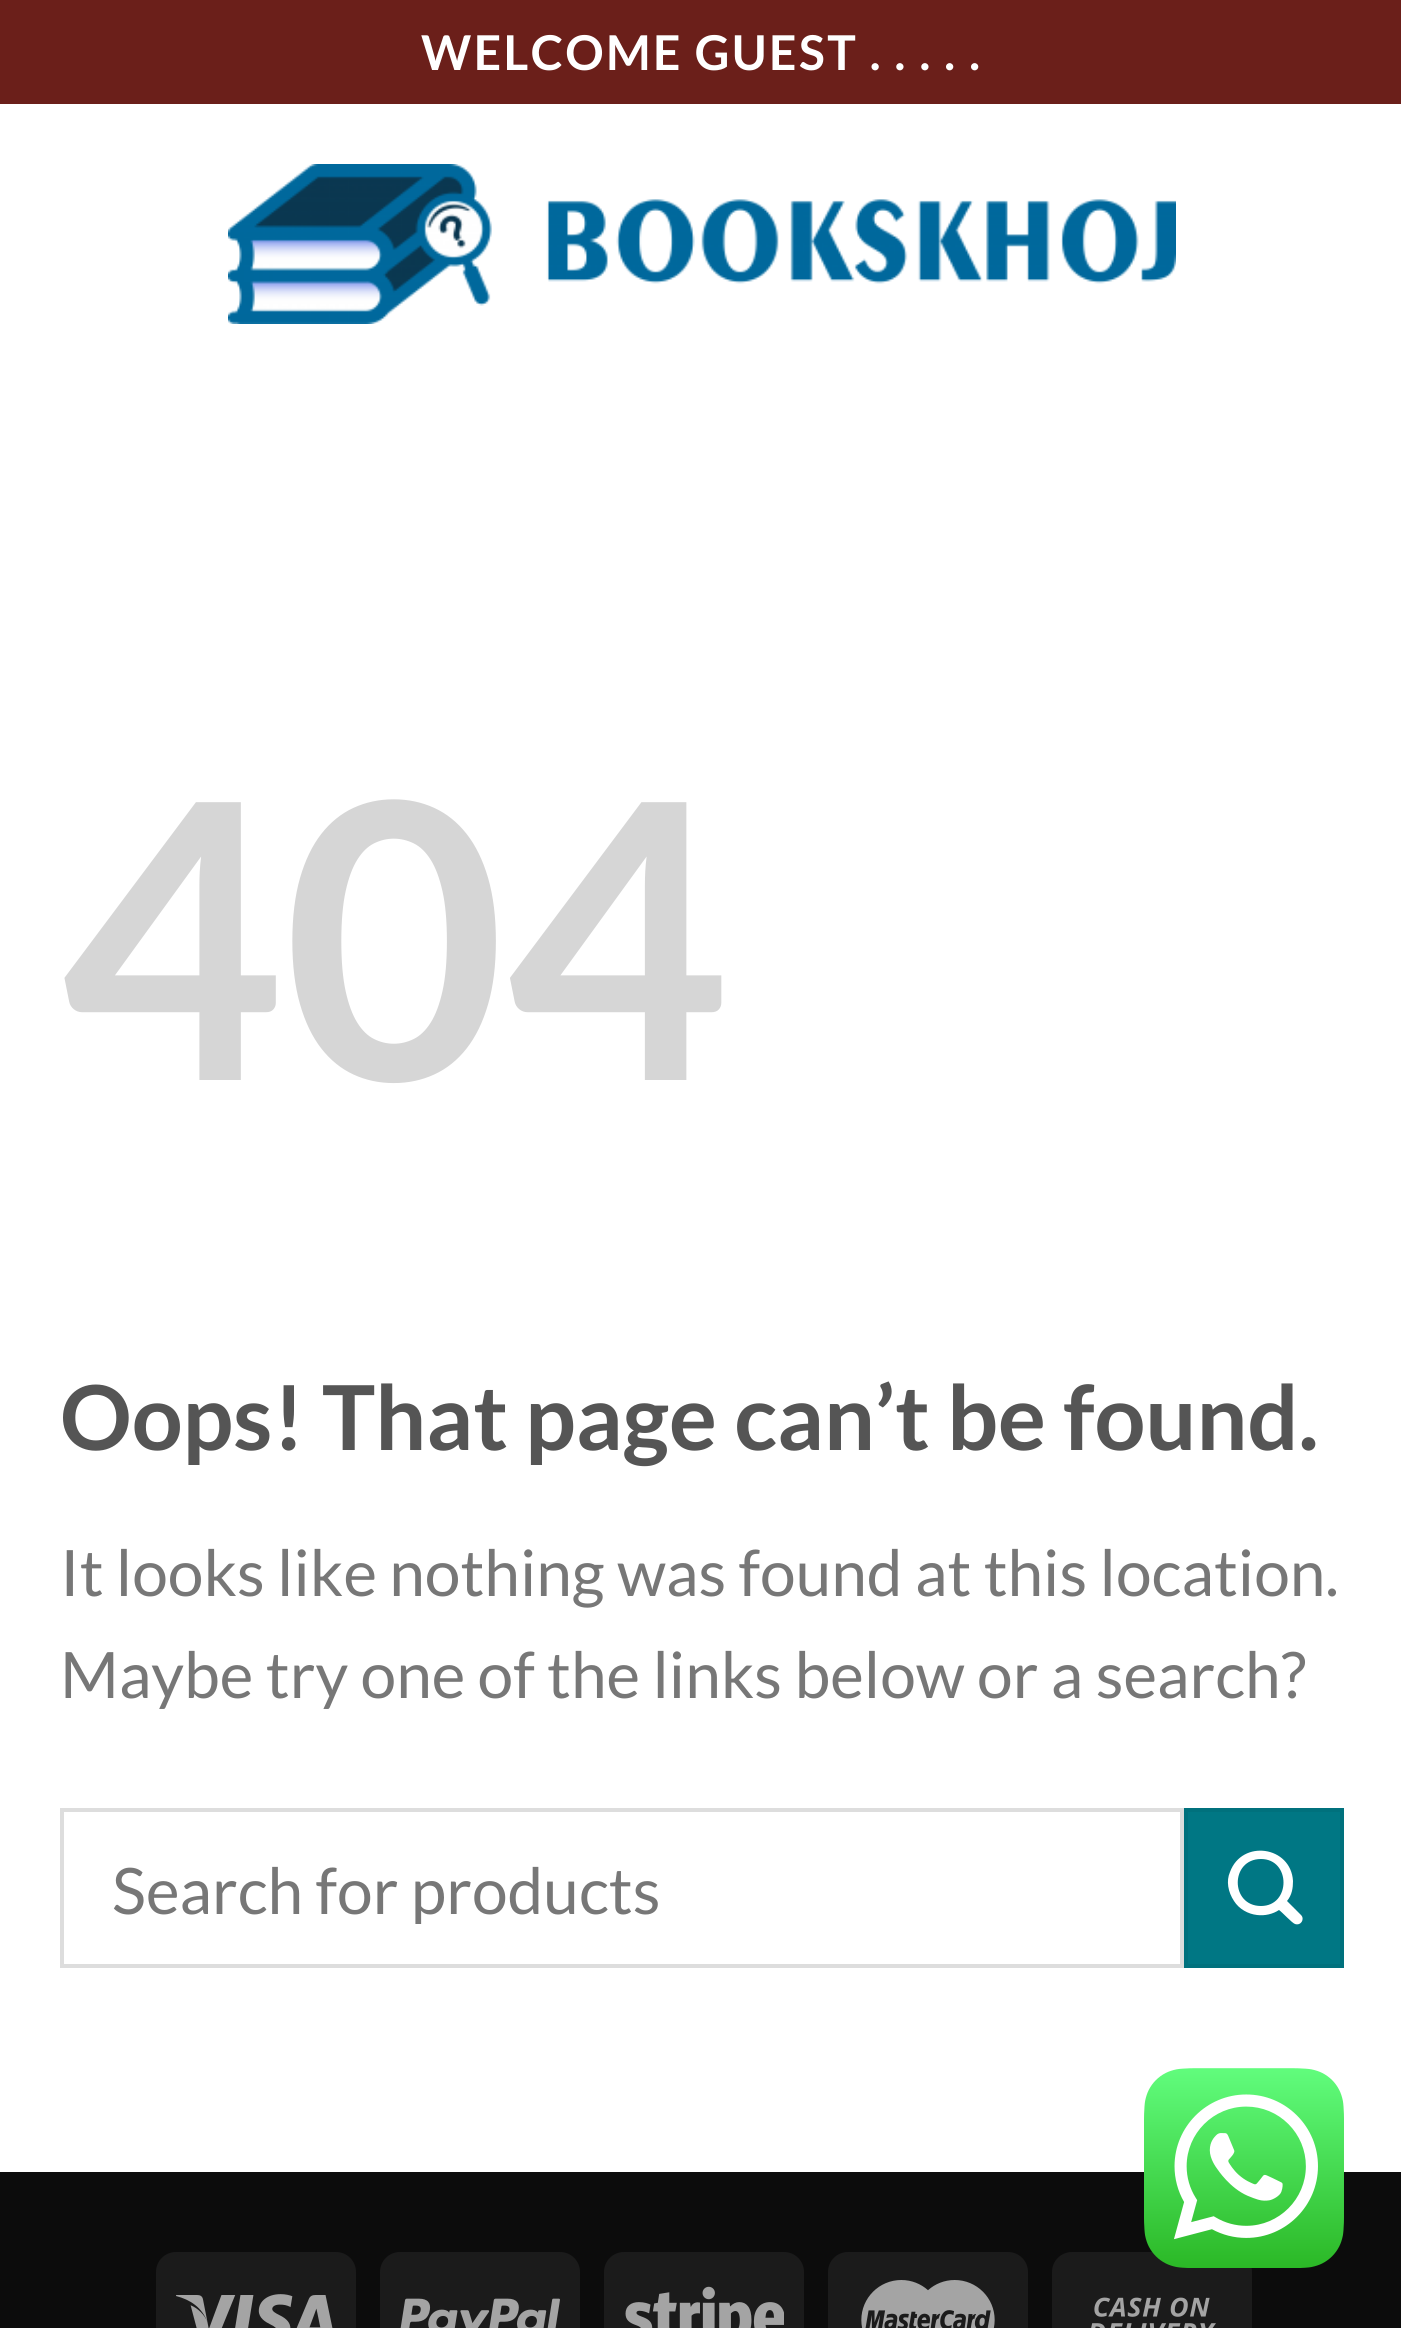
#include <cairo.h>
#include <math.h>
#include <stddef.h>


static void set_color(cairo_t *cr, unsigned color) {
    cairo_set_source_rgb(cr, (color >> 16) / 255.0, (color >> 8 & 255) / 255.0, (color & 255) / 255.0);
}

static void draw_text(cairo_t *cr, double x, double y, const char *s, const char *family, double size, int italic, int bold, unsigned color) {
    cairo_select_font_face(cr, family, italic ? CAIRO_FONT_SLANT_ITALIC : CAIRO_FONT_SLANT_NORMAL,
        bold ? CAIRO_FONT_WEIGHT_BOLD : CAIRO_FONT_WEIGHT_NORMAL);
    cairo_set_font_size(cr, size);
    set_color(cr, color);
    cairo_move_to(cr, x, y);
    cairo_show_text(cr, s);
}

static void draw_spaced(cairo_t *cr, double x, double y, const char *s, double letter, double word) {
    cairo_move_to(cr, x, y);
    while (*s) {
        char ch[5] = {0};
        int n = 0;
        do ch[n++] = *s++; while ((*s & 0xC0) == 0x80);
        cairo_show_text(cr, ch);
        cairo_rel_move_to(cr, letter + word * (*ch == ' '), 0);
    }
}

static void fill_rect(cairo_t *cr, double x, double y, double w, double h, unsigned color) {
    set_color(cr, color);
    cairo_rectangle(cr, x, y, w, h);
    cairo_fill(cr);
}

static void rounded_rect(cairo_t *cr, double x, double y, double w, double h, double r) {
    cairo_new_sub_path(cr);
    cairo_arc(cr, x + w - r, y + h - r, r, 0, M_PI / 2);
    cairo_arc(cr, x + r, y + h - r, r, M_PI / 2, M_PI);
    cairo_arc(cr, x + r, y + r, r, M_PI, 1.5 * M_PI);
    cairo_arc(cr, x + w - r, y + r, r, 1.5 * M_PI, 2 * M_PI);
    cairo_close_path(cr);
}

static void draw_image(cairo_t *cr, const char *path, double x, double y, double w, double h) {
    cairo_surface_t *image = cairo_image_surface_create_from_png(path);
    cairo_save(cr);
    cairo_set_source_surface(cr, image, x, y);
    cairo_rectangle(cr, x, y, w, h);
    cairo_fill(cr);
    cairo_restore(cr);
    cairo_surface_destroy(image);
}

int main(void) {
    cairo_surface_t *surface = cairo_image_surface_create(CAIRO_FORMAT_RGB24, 1401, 2328);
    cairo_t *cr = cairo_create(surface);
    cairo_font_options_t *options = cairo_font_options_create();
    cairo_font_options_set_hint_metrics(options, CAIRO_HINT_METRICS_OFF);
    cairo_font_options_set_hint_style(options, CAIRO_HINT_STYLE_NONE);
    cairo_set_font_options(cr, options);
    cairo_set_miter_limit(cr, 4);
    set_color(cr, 0xFFFFFF);
    cairo_paint(cr);
    fill_rect(cr, 0, 0, 1401, 104, 0x6B1F1A);
    cairo_select_font_face(cr, "Lato", CAIRO_FONT_SLANT_NORMAL, CAIRO_FONT_WEIGHT_BOLD);
    cairo_set_font_size(cr, 48);
    set_color(cr, 0xFFFFFF);
    draw_spaced(cr, 421, 70, "WELCOME GUEST . . . . .", 2.4, 0);
    draw_image(cr, "assets/img1.png", 228, 164, 948, 160);
    draw_text(cr, 60, 1080, "404", "Lato", 384, 0, 1, 0xD6D6D6);
    draw_text(cr, 60, 1450, "Oops! That page can’t be found.", "Lato", 89.6, 0, 1, 0x555555);
    draw_text(cr, 60, 1596, "It looks like nothing was found at this location.", "Lato", 64, 0, 0, 0x777777);
    draw_text(cr, 60, 1698, "Maybe try one of the links below or a search?", "Lato", 64, 0, 0, 0x777777);
    cairo_rectangle(cr, 62, 1810, 1120, 156);
    set_color(cr, 0xDDDDDD);
    cairo_set_line_width(cr, 4);
    cairo_stroke(cr);
    cairo_save(cr);
    cairo_rectangle(cr, 112, 1848, 1004, 76);
    cairo_clip(cr);
    draw_text(cr, 112, 1914, "Search for products", "Lato", 64, 0, 0, 0x777777);
    cairo_restore(cr);
    set_color(cr, 0x007784);
    cairo_rectangle(cr, 1186, 1810, 156, 156);
    cairo_fill_preserve(cr);
    set_color(cr, 0x00717D);
    cairo_stroke(cr);
    set_color(cr, 0xFFFFFF);
    cairo_new_path(cr);
    cairo_move_to(cr, 1301, 1915);
    cairo_line_to(cr, 1287, 1901);
    cairo_curve_to(cr, 1292, 1895, 1293, 1888, 1293, 1881);
    cairo_curve_to(cr, 1291, 1846, 1242, 1839, 1230, 1872);
    cairo_curve_to(cr, 1226, 1881, 1228, 1892, 1234, 1901);
    cairo_curve_to(cr, 1239, 1909, 1248, 1914, 1257, 1915);
    cairo_curve_to(cr, 1265, 1916, 1273, 1914, 1279, 1910);
    cairo_curve_to(cr, 1282, 1912, 1292, 1923, 1295, 1924);
    cairo_curve_to(cr, 1301, 1926, 1305, 1919, 1301, 1915);
    cairo_close_path(cr);
    cairo_move_to(cr, 1261, 1906);
    cairo_curve_to(cr, 1230, 1906, 1230, 1859, 1261, 1859);
    cairo_curve_to(cr, 1291, 1859, 1291, 1906, 1261, 1906);
    cairo_close_path(cr);
    cairo_fill(cr);
    fill_rect(cr, 0, 2172, 1401, 156, 0x0C0C0C);
    set_color(cr, 0x1B1B1B);
    rounded_rect(cr, 156, 2252, 200, 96, 20);
    cairo_fill(cr);
    draw_image(cr, "assets/img2.png", 176, 2294, 157, 34);
    rounded_rect(cr, 380, 2252, 200, 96, 20);
    cairo_fill(cr);
    draw_image(cr, "assets/img3.png", 400, 2298, 160, 30);
    rounded_rect(cr, 604, 2252, 200, 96, 20);
    cairo_fill(cr);
    draw_image(cr, "assets/img4.png", 625, 2286, 159, 42);
    rounded_rect(cr, 828, 2252, 200, 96, 20);
    cairo_fill(cr);
    draw_image(cr, "assets/img5.png", 861, 2280, 134, 48);
    rounded_rect(cr, 1052, 2252, 200, 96, 20);
    cairo_fill(cr);
    draw_image(cr, "assets/img6.png", 1091, 2297, 125, 31);
    draw_image(cr, "assets/img7.png", 1144, 2068, 200, 200);
    cairo_surface_write_to_png(surface, "output.png");
    cairo_font_options_destroy(options);
    cairo_destroy(cr);
    cairo_surface_destroy(surface);
    return 0;
}
